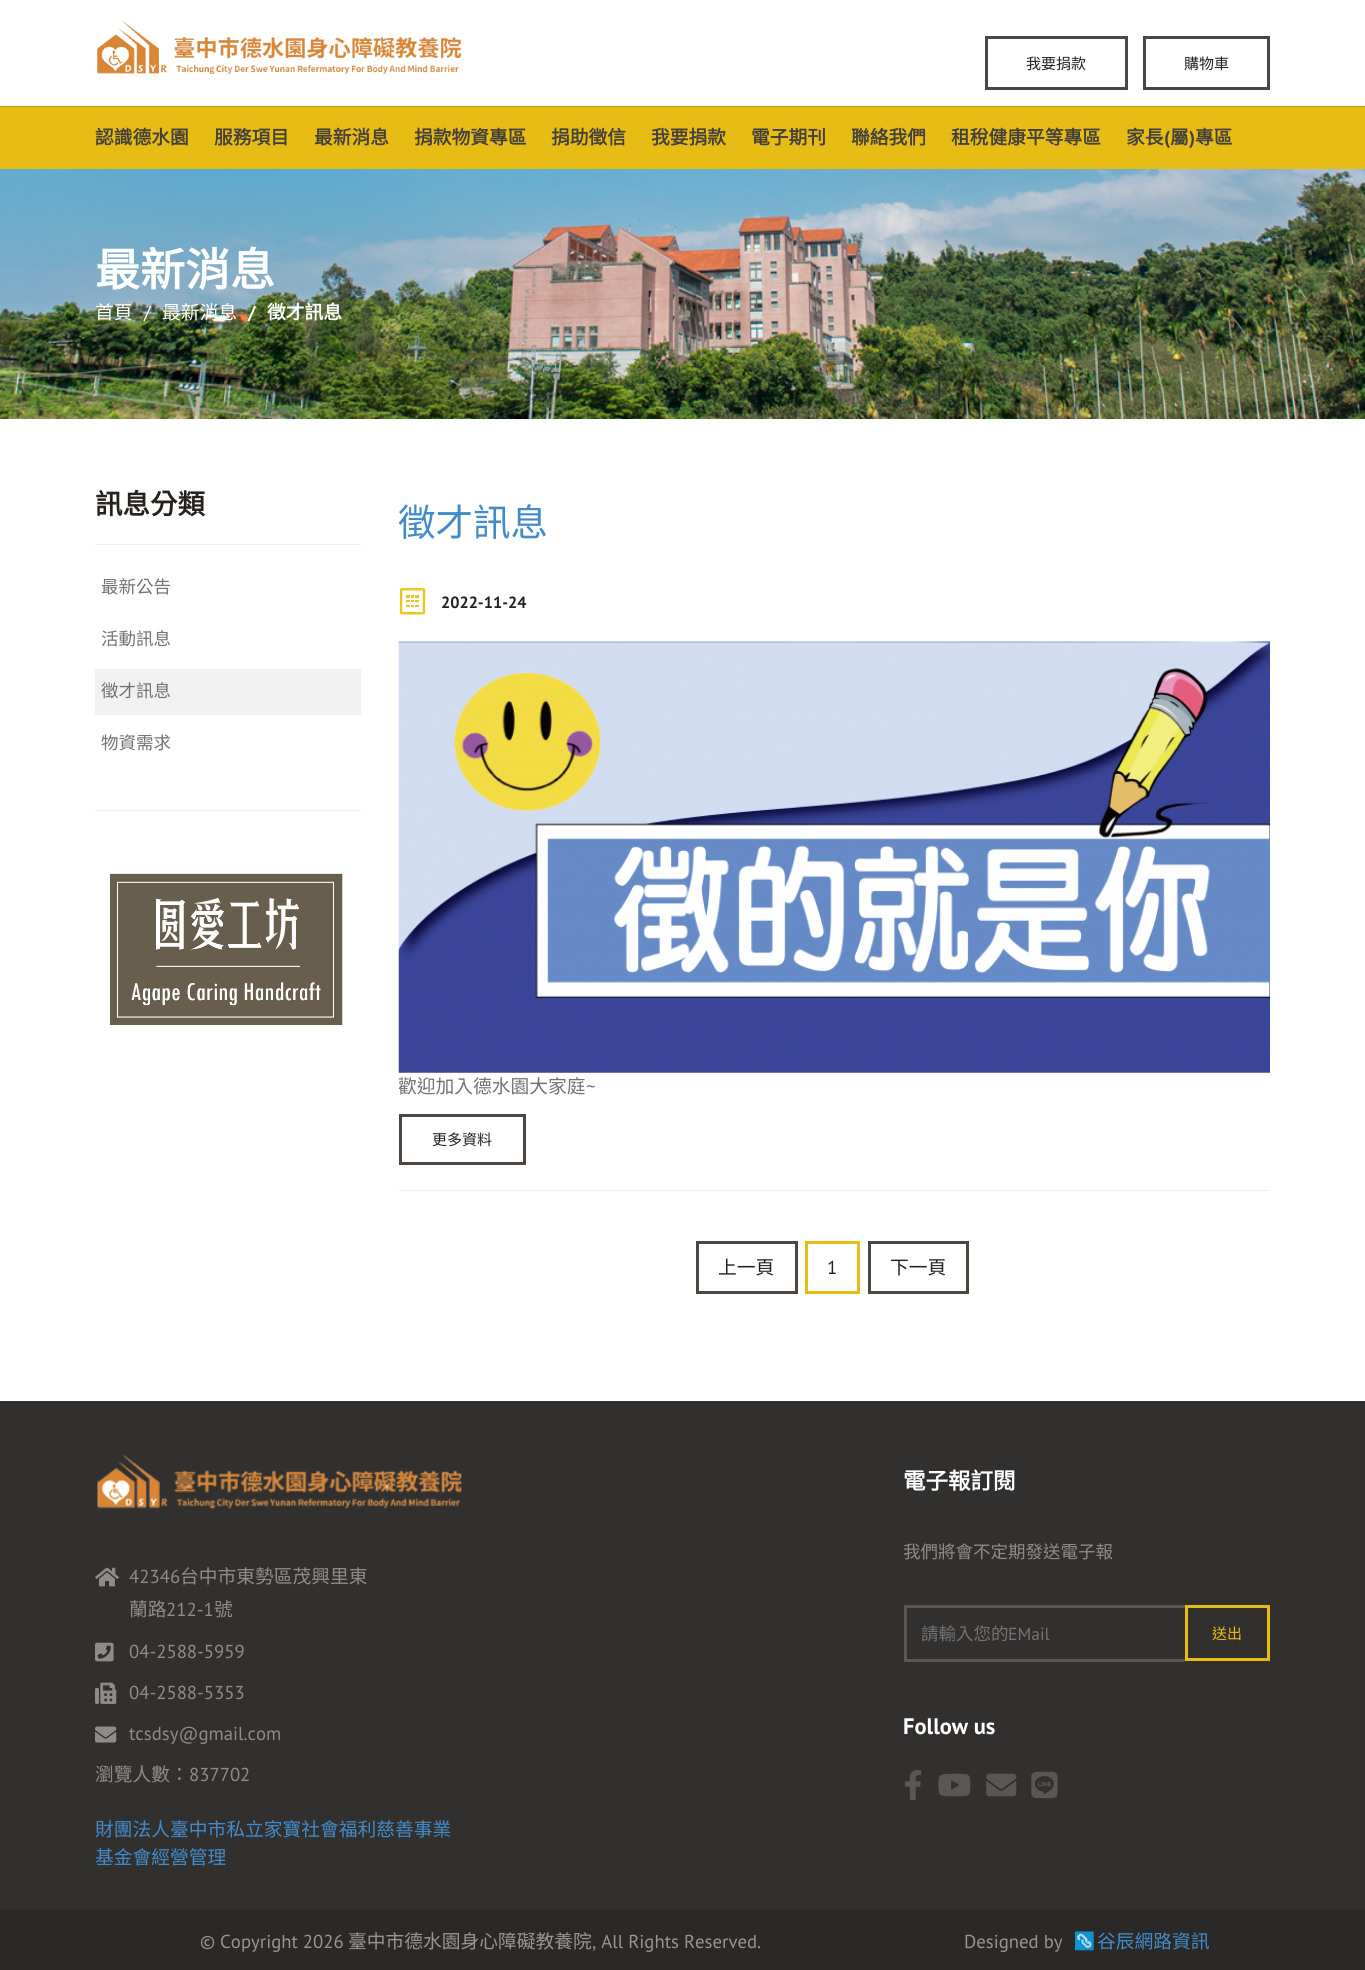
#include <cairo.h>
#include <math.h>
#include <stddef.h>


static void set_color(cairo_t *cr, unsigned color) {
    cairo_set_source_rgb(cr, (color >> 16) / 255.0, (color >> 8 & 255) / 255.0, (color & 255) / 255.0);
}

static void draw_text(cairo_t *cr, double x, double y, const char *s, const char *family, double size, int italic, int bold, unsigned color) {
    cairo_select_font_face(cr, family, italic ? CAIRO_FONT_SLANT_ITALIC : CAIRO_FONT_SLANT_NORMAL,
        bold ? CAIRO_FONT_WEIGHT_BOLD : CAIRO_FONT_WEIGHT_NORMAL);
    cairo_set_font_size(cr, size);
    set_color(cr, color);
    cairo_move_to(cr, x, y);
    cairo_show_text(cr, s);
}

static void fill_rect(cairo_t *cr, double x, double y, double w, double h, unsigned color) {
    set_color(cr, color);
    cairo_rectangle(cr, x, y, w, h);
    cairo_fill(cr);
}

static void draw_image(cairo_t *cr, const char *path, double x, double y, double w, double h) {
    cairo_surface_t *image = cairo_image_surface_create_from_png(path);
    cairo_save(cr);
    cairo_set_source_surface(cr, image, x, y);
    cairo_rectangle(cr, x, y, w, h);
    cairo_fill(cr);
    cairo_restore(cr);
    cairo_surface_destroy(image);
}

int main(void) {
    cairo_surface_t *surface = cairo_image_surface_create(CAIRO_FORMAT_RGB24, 1365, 1970);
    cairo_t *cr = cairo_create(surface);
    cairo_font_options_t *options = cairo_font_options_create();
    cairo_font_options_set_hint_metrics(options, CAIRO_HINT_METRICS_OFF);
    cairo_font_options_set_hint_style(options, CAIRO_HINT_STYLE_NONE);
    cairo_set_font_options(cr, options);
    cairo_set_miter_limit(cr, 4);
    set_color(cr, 0xFFFFFF);
    cairo_paint(cr);
    draw_image(cr, "assets/img1.png", 97, 20, 365, 55);
    cairo_rectangle(cr, 986.5, 37.5, 140, 51);
    set_color(cr, 0x4D4641);
    cairo_set_line_width(cr, 3);
    cairo_stroke(cr);
    draw_text(cr, 1026, 69, "我要捐款", "Noto Sans CJK TC", 15, 0, 0, 0x26211D);
    cairo_rectangle(cr, 1144.5, 37.5, 124, 51);
    set_color(cr, 0x4D4641);
    cairo_stroke(cr);
    draw_text(cr, 1184, 69, "購物車", "Noto Sans CJK TC", 15, 0, 0, 0x26211D);
    fill_rect(cr, 0, 107, 1365, 62, 0xE7BD15);
    fill_rect(cr, 0, 106, 1365, 1, 0xB89711);
    draw_text(cr, 95, 144, "認識德水園", "Noto Sans CJK TC", 18.75, 0, 1, 0x45403C);
    draw_text(cr, 214, 144, "服務項目", "Noto Sans CJK TC", 18.75, 0, 1, 0x45403C);
    draw_text(cr, 314, 144, "最新消息", "Noto Sans CJK TC", 18.75, 0, 1, 0x45403C);
    draw_text(cr, 414, 144, "捐款物資專區", "Noto Sans CJK TC", 18.75, 0, 1, 0x45403C);
    draw_text(cr, 551, 144, "捐助徵信", "Noto Sans CJK TC", 18.75, 0, 1, 0x45403C);
    draw_text(cr, 651, 144, "我要捐款", "Noto Sans CJK TC", 18.75, 0, 1, 0x45403C);
    draw_text(cr, 751, 144, "電子期刊", "Noto Sans CJK TC", 18.75, 0, 1, 0x45403C);
    draw_text(cr, 851, 144, "聯絡我們", "Noto Sans CJK TC", 18.75, 0, 1, 0x45403C);
    draw_text(cr, 951, 144, "租稅健康平等專區", "Noto Sans CJK TC", 18.75, 0, 1, 0x45403C);
    draw_text(cr, 1126, 144, "家長", "Noto Sans CJK TC", 18.75, 0, 1, 0x45403C);
    draw_text(cr, 1164, 144, "(", "PT Sans", 18.75, 0, 1, 0x45403C);
    draw_text(cr, 1170, 144, "屬", "Noto Sans CJK TC", 18.75, 0, 1, 0x45403C);
    draw_text(cr, 1189, 144, ")", "PT Sans", 18.75, 0, 1, 0x45403C);
    draw_text(cr, 1195, 144, "專區", "Noto Sans CJK TC", 18.75, 0, 1, 0x45403C);
    draw_image(cr, "assets/img2.png", 0, 169, 1365, 250);
    draw_text(cr, 95, 286, "最新消息", "Noto Sans CJK TC", 45, 0, 1, 0xFFFFFF);
    draw_text(cr, 95, 319, "首頁", "Noto Sans CJK TC", 18.75, 0, 0, 0xFFFFFF);
    draw_text(cr, 144, 319, "/", "PT Sans", 18.75, 0, 0, 0xFFFFFF);
    draw_text(cr, 162, 319, "最新消息", "Noto Sans CJK TC", 18.75, 0, 0, 0xFFFFFF);
    draw_text(cr, 248, 319, "/", "PT Sans", 18.75, 0, 1, 0xFFFFFF);
    draw_text(cr, 267, 319, "徵才訊息", "Noto Sans CJK TC", 18.75, 0, 1, 0xFFFFFF);
    fill_rect(cr, 95, 544, 266, 1, 0xF2EDE9);
    draw_text(cr, 95, 514, "訊息分類", "Noto Sans CJK TC", 27.5, 0, 1, 0x26211D);
    draw_text(cr, 101, 593, "最新公告", "Noto Sans CJK TC", 17.5, 0, 0, 0x727272);
    draw_text(cr, 101, 645, "活動訊息", "Noto Sans CJK TC", 17.5, 0, 0, 0x727272);
    fill_rect(cr, 95, 669, 266, 46, 0xF1F1F1);
    draw_text(cr, 101, 697, "徵才訊息", "Noto Sans CJK TC", 17.5, 0, 0, 0x727272);
    draw_text(cr, 101, 749, "物資需求", "Noto Sans CJK TC", 17.5, 0, 0, 0x727272);
    fill_rect(cr, 95, 810, 266, 1, 0xEEEEEE);
    draw_image(cr, "assets/img3.png", 110, 873, 233, 152);
    draw_text(cr, 398, 536, "徵才訊息", "Noto Sans CJK TC", 37.5, 0, 0, 0x428BCA);
    draw_image(cr, "assets/img4.png", 399, 588, 27, 27);
    draw_text(cr, 441, 608, "2022-11-24", "PT Sans", 16.25, 0, 1, 0x26211D);
    draw_image(cr, "assets/img5.png", 398, 641, 872, 432);
    draw_text(cr, 398, 1093, "歡迎加入德水園大家庭", "Noto Sans CJK TC", 18.75, 0, 0, 0x727272);
    draw_text(cr, 586, 1093, "~", "PT Sans", 18.75, 0, 0, 0x727272);
    cairo_rectangle(cr, 400.5, 1115.5, 124, 48);
    set_color(cr, 0x4D4641);
    cairo_stroke(cr);
    draw_text(cr, 432, 1145, "更多資料", "Noto Sans CJK TC", 15, 0, 0, 0x26211D);
    fill_rect(cr, 399, 1190, 871, 1, 0xEEEEEE);
    cairo_rectangle(cr, 697.5, 1242.5, 99, 50);
    set_color(cr, 0x4D4641);
    cairo_stroke(cr);
    draw_text(cr, 718, 1274, "上一頁", "Noto Sans CJK TC", 18.75, 0, 0, 0x26211D);
    cairo_rectangle(cr, 806.5, 1242.5, 52, 50);
    set_color(cr, 0xE7BD15);
    cairo_stroke(cr);
    draw_text(cr, 827, 1274, "1", "PT Sans", 18.75, 0, 0, 0x26211D);
    cairo_rectangle(cr, 869.5, 1242.5, 98, 50);
    set_color(cr, 0x4D4641);
    cairo_stroke(cr);
    draw_text(cr, 890, 1274, "下一頁", "Noto Sans CJK TC", 18.75, 0, 0, 0x26211D);
    fill_rect(cr, 0, 1401, 1365, 508, 0x32302F);
    draw_image(cr, "assets/img6.png", 97, 1454, 365, 55);
    draw_image(cr, "assets/img7.png", 95, 1567, 24, 20);
    draw_text(cr, 129, 1583, "42346", "PT Sans", 18.75, 0, 0, 0x8F8B89);
    draw_text(cr, 180, 1583, "台中市東勢區茂興里東", "Noto Sans CJK TC", 18.75, 0, 0, 0x8F8B89);
    draw_text(cr, 129, 1616, "蘭路", "Noto Sans CJK TC", 18.75, 0, 0, 0x8F8B89);
    draw_text(cr, 166, 1616, "212-1", "PT Sans", 18.75, 0, 0, 0x8F8B89);
    draw_text(cr, 214, 1616, "號", "Noto Sans CJK TC", 18.75, 0, 0, 0x8F8B89);
    draw_image(cr, "assets/img8.png", 95, 1642, 19, 20);
    draw_text(cr, 129, 1658, "04-2588-5959", "PT Sans", 18.75, 0, 0, 0x8F8B89);
    draw_image(cr, "assets/img9.png", 95, 1682, 22, 22);
    draw_text(cr, 129, 1699, "04-2588-5353", "PT Sans", 18.75, 0, 0, 0x8F8B89);
    draw_image(cr, "assets/img10.png", 95, 1726, 22, 17);
    draw_text(cr, 129, 1740, "tcsdsy@gmail.com", "PT Sans", 18.75, 0, 0, 0x8F8B89);
    draw_text(cr, 95, 1781, "瀏覽人數：", "Noto Sans CJK TC", 18.75, 0, 0, 0x8F8B89);
    draw_text(cr, 189, 1781, "837702", "PT Sans", 18.75, 0, 0, 0x8F8B89);
    draw_text(cr, 95, 1836, "財團法人臺中市私立家寶社會福利慈善事業", "Noto Sans CJK TC", 18.75, 0, 0, 0x428BCA);
    draw_text(cr, 95, 1864, "基金會經營管理", "Noto Sans CJK TC", 18.75, 0, 0, 0x428BCA);
    draw_text(cr, 903, 1489, "電子報訂閱", "Noto Sans CJK TC", 22.5, 0, 1, 0xFFFFFF);
    draw_text(cr, 903, 1558, "我們將會不定期發送電子報", "Noto Sans CJK TC", 17.5, 0, 0, 0x8F8B89);
    fill_rect(cr, 904, 1605, 281, 3, 0x595756);
    fill_rect(cr, 904, 1659, 281, 3, 0x595756);
    fill_rect(cr, 904, 1605, 3, 56, 0x595756);
    draw_text(cr, 921, 1640, "請輸入您的", "Noto Sans CJK TC", 17.5, 0, 0, 0x727272);
    draw_text(cr, 1008, 1640, "EMail", "PT Sans", 17.5, 0, 0, 0x727272);
    cairo_rectangle(cr, 1186.5, 1606.5, 82, 53);
    set_color(cr, 0xE7BD15);
    cairo_stroke(cr);
    draw_text(cr, 1212, 1639, "送出", "Noto Sans CJK TC", 15, 0, 0, 0xE7BD15);
    draw_text(cr, 903, 1734, "Follow us", "PT Sans", 22.5, 0, 1, 0xFFFFFF);
    draw_image(cr, "assets/img11.png", 905, 1770, 17, 30);
    draw_image(cr, "assets/img12.png", 938, 1773, 33, 24);
    draw_image(cr, "assets/img13.png", 986, 1773, 31, 24);
    draw_image(cr, "assets/img14.png", 1031, 1771, 27, 28);
    fill_rect(cr, 0, 1909, 1365, 61, 0x2A2928);
    draw_text(cr, 200, 1948, "© Copyright 2026", "PT Sans", 18.75, 0, 0, 0x999493);
    draw_text(cr, 348, 1948, "臺中市德水園身心障礙教養院", "Noto Sans CJK TC", 18.75, 0, 0, 0x999493);
    draw_text(cr, 592, 1948, ", All Rights Reserved.", "PT Sans", 18.75, 0, 0, 0x999493);
    draw_text(cr, 964, 1948, "Designed by", "PT Sans", 18.75, 0, 0, 0x999493);
    draw_image(cr, "assets/img15.png", 1075, 1931, 19, 20);
    draw_text(cr, 1097, 1948, "谷辰網路資訊", "Noto Sans CJK TC", 18.75, 0, 0, 0x428BCA);
    cairo_surface_write_to_png(surface, "output.png");
    cairo_font_options_destroy(options);
    cairo_destroy(cr);
    cairo_surface_destroy(surface);
    return 0;
}
